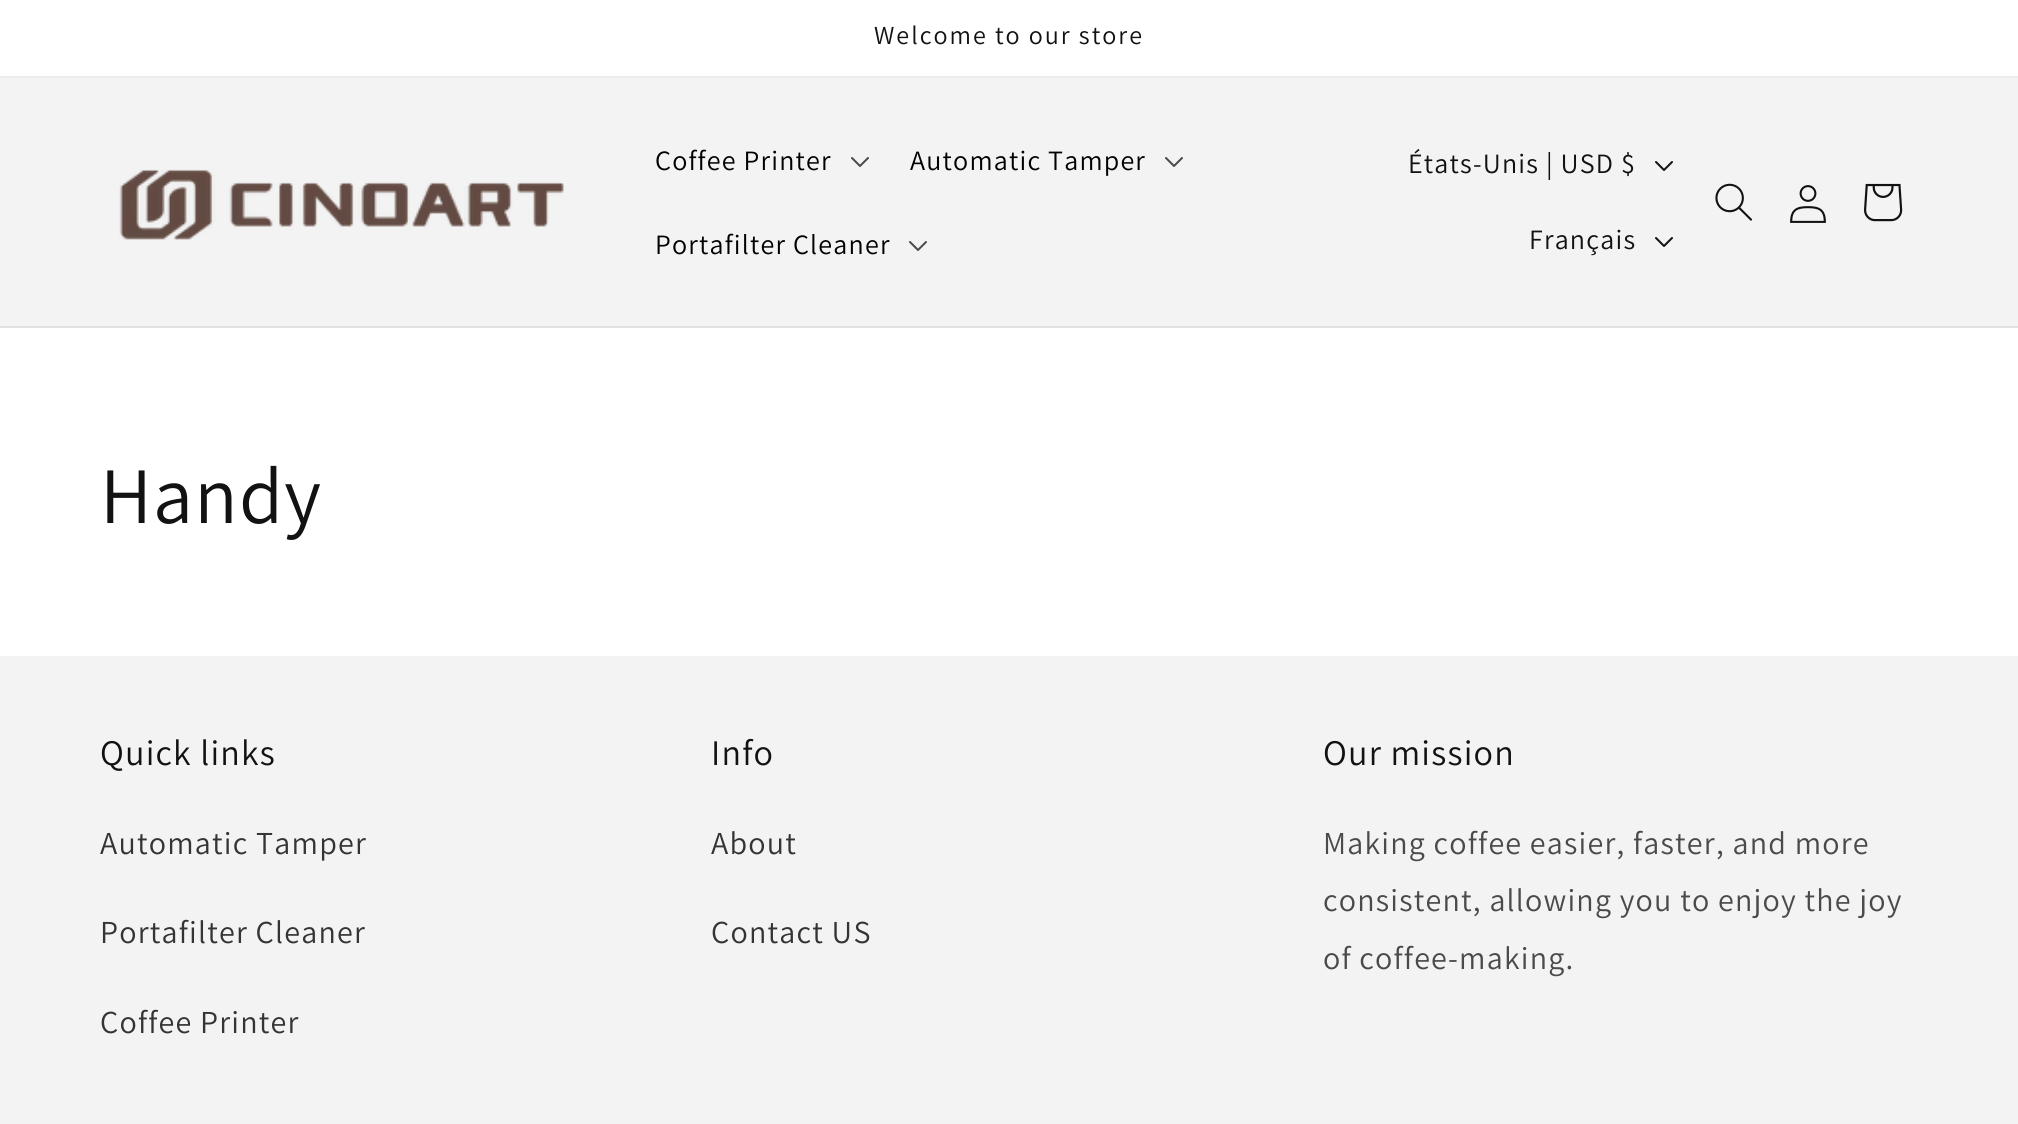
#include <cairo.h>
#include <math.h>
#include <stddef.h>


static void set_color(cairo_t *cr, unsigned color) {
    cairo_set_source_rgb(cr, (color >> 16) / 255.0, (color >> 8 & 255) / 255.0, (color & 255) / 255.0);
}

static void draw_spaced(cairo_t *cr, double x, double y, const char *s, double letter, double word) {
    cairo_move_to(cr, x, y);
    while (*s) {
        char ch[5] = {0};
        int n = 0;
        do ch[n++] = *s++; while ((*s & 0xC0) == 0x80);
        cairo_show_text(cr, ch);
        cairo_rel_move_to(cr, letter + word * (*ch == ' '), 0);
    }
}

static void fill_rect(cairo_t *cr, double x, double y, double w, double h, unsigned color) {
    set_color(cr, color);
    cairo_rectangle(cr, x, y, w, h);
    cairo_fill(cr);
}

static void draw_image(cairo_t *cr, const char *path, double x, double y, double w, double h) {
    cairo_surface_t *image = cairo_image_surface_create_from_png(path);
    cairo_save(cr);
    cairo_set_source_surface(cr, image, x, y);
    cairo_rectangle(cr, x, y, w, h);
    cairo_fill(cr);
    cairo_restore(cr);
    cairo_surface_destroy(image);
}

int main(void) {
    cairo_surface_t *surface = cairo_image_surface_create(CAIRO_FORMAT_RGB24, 2018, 1124);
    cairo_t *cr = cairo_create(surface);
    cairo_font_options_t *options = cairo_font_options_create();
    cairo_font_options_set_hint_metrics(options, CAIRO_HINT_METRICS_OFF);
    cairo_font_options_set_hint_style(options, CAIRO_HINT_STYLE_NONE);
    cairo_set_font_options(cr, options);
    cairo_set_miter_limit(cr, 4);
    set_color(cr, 0xFFFFFF);
    cairo_paint(cr);
    fill_rect(cr, 0, 76, 2018, 2, 0xECECEC);
    cairo_select_font_face(cr, "Assistant", CAIRO_FONT_SLANT_NORMAL, CAIRO_FONT_WEIGHT_NORMAL);
    cairo_set_font_size(cr, 26);
    set_color(cr, 0x121212);
    draw_spaced(cr, 874, 44, "Welcome to our store", 2, 0);
    fill_rect(cr, 0, 78, 2018, 248, 0xF3F3F3);
    fill_rect(cr, 0, 326, 2018, 2, 0xE1E1E1);
    draw_image(cr, "assets/img1.png", 119, 169, 445, 71);
    cairo_set_font_size(cr, 28);
    set_color(cr, 0x000000);
    draw_spaced(cr, 655, 170, "Coffee Printer", 1.2, 0);
    draw_image(cr, "assets/img2.png", 851, 157, 18, 10);
    draw_spaced(cr, 910, 170, "Automatic Tamper", 1.2, 0);
    draw_image(cr, "assets/img2.png", 1165, 157, 18, 10);
    draw_spaced(cr, 655, 254, "Portafilter Cleaner", 1.2, 0);
    draw_image(cr, "assets/img2.png", 909, 241, 18, 10);
    set_color(cr, 0x121212);
    draw_spaced(cr, 1408, 173, "États-Unis | USD $", 1.2, 0);
    draw_image(cr, "assets/img3.png", 1655, 161, 18, 10);
    draw_spaced(cr, 1529, 249, "Français", 1.2, 0);
    draw_image(cr, "assets/img3.png", 1655, 237, 18, 10);
    draw_image(cr, "assets/img4.png", 1715, 183, 37, 38);
    draw_image(cr, "assets/img5.png", 1790, 185, 36, 38);
    draw_image(cr, "assets/img6.png", 1864, 183, 39, 39);
    cairo_set_font_size(cr, 80);
    draw_spaced(cr, 100, 523, "Handy", 1.2, 0);
    fill_rect(cr, 0, 656, 2018, 468, 0xF3F3F3);
    cairo_set_font_size(cr, 36);
    set_color(cr, 0x121212);
    draw_spaced(cr, 100, 765, "Quick links", 1.2, 0);
    cairo_set_font_size(cr, 32);
    set_color(cr, 0x343434);
    draw_spaced(cr, 100, 854, "Automatic Tamper", 1.2, 0);
    draw_spaced(cr, 100, 943, "Portafilter Cleaner", 1.2, 0);
    draw_spaced(cr, 100, 1033, "Coffee Printer", 1.2, 0);
    cairo_set_font_size(cr, 36);
    set_color(cr, 0x121212);
    draw_spaced(cr, 711, 765, "Info", 1.2, 0);
    cairo_set_font_size(cr, 32);
    set_color(cr, 0x343434);
    draw_spaced(cr, 711, 854, "About", 1.2, 0);
    draw_spaced(cr, 711, 943, "Contact US", 1.2, 0);
    cairo_set_font_size(cr, 36);
    set_color(cr, 0x121212);
    draw_spaced(cr, 1323, 765, "Our mission", 1.2, 0);
    cairo_set_font_size(cr, 32);
    set_color(cr, 0x4A4A4A);
    draw_spaced(cr, 1323, 854, "Making coffee easier, faster, and more", 1.2, 0);
    draw_spaced(cr, 1323, 911, "consistent, allowing you to enjoy the joy", 1.2, 0);
    draw_spaced(cr, 1323, 969, "of coffee-making.", 1.2, 0);
    cairo_surface_write_to_png(surface, "output.png");
    cairo_font_options_destroy(options);
    cairo_destroy(cr);
    cairo_surface_destroy(surface);
    return 0;
}
